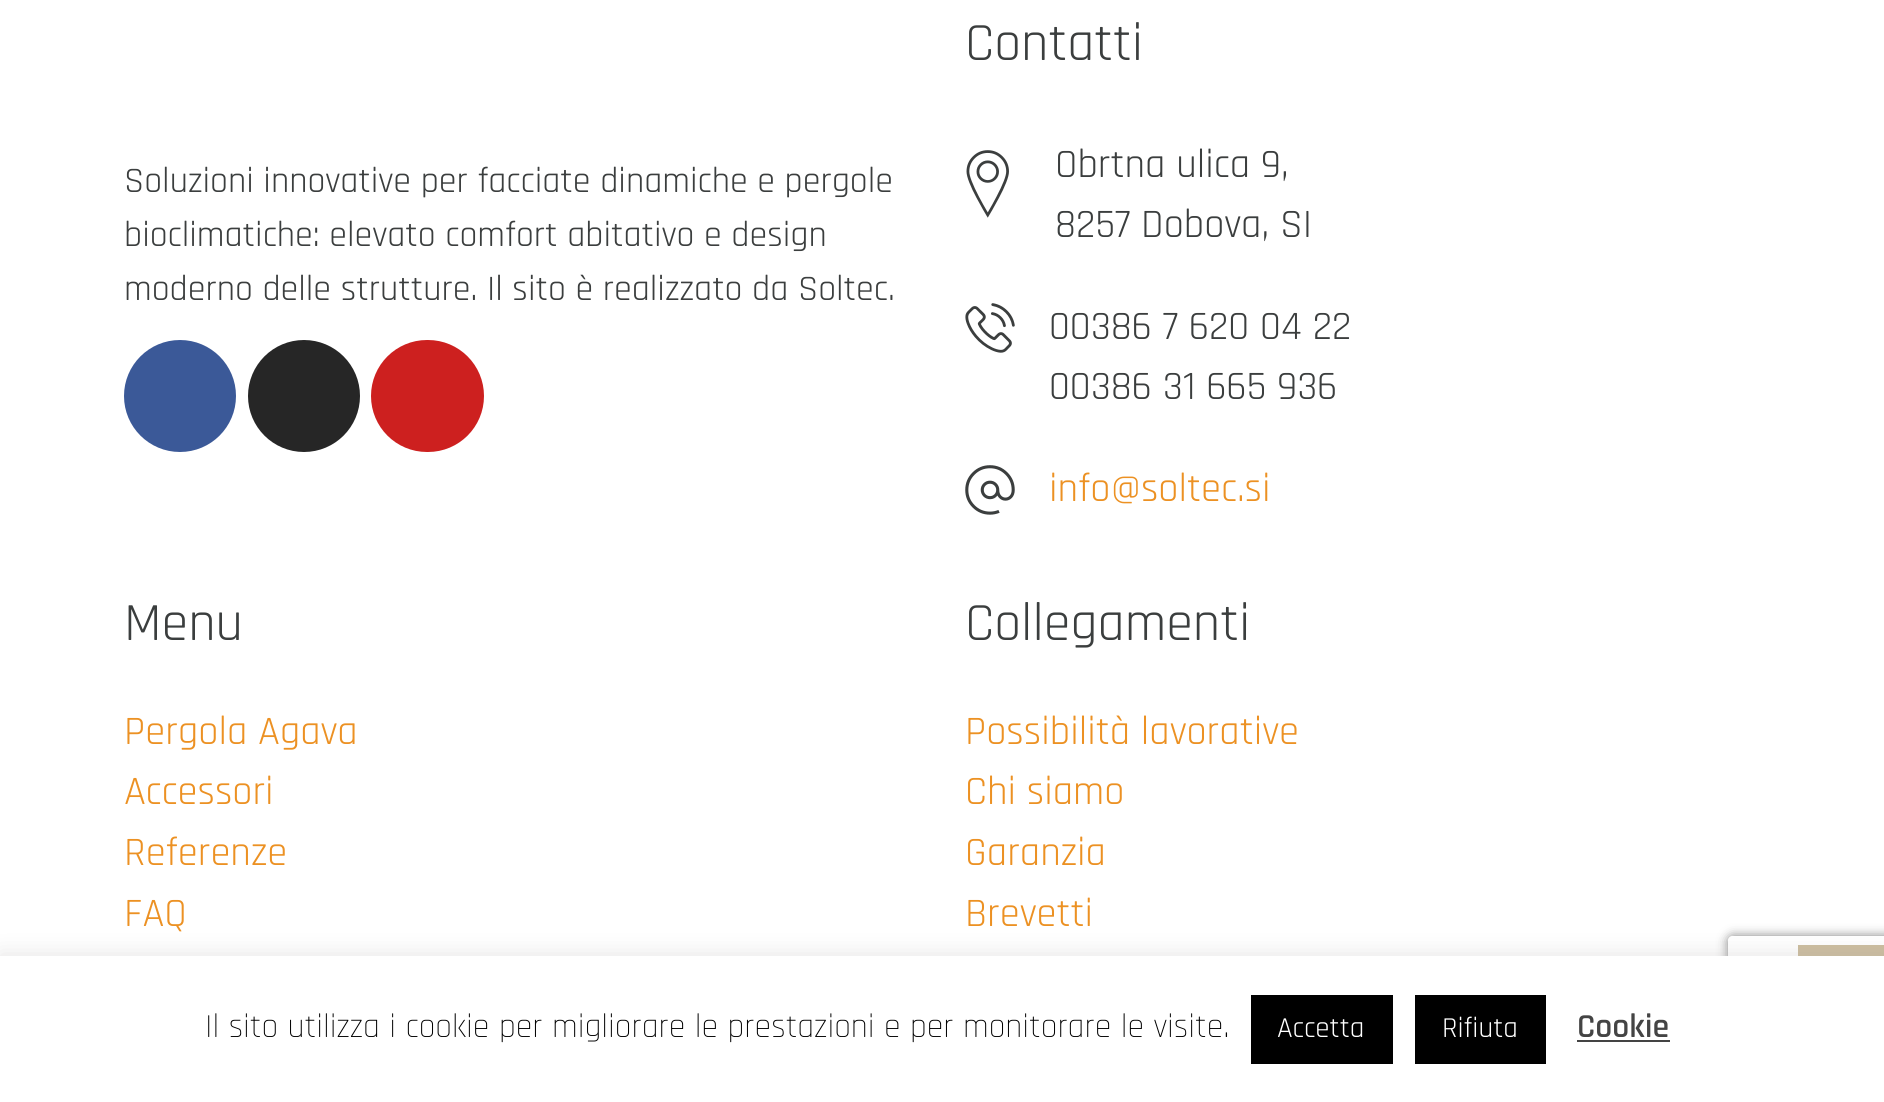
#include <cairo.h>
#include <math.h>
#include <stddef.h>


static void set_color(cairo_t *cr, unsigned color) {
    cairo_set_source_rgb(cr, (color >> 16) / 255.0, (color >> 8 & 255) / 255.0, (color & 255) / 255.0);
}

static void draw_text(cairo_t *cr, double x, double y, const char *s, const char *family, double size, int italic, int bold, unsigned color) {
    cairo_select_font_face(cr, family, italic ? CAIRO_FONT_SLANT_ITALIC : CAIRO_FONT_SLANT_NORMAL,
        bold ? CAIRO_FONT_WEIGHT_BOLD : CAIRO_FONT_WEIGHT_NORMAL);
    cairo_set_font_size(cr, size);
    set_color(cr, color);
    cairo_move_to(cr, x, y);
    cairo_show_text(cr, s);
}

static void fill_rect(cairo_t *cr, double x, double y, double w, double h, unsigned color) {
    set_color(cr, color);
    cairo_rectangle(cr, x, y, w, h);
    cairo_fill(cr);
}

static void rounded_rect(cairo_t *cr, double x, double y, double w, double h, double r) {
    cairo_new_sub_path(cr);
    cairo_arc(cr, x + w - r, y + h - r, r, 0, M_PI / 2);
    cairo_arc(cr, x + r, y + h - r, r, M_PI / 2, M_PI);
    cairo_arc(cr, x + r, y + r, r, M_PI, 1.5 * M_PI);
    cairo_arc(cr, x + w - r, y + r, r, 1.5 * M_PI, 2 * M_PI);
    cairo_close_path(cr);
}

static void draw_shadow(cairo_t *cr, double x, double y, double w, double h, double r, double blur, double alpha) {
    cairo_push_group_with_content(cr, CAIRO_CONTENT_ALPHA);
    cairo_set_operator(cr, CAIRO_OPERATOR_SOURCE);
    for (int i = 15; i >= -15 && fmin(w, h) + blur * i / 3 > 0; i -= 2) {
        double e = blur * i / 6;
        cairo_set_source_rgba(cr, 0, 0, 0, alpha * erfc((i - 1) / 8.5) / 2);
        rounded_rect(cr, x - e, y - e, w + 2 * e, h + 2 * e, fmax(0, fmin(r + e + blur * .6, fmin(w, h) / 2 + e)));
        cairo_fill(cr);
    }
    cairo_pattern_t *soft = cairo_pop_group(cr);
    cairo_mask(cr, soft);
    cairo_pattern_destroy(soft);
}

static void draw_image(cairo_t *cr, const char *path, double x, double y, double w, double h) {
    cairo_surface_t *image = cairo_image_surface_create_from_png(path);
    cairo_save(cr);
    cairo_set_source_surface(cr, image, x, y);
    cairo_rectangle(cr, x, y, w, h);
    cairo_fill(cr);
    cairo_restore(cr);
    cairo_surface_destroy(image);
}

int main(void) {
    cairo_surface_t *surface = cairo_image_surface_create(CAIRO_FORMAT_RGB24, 1884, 1102);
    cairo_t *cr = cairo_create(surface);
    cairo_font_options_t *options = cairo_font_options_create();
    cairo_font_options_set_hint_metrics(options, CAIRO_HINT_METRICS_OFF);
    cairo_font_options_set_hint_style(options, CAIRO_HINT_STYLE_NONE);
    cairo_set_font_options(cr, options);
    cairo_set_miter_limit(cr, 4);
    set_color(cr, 0xFFFFFF);
    cairo_paint(cr);
    draw_text(cr, 124, 192, "Soluzioni innovative per facciate dinamiche e pergole", "Rajdhani", 36, 0, 0, 0x3B3E3E);
    draw_text(cr, 124, 246, "bioclimatiche: elevato comfort abitativo e design", "Rajdhani", 36, 0, 0, 0x3B3E3E);
    draw_text(cr, 124, 300, "moderno delle strutture. Il sito è realizzato da Soltec.", "Rajdhani", 36, 0, 0, 0x3B3E3E);
    set_color(cr, 0x3B5998);
    cairo_new_path(cr);
    cairo_arc(cr, 180, 396, 56, 0, 2 * M_PI);
    cairo_fill(cr);
    set_color(cr, 0x262626);
    cairo_arc(cr, 304, 396, 56, 0, 2 * M_PI);
    cairo_fill(cr);
    set_color(cr, 0xCD201F);
    rounded_rect(cr, 371, 340, 113, 112, 56);
    cairo_fill(cr);
    draw_text(cr, 965, 60, "Contatti", "Rajdhani", 54, 0, 0, 0x3B3E3E);
    draw_image(cr, "assets/img1.png", 966, 150, 43, 68);
    draw_text(cr, 1055, 177, "Obrtna ulica 9,", "Rajdhani", 40.5, 0, 0, 0x3B3E3E);
    draw_text(cr, 1055, 237, "8257 Dobova, SI", "Rajdhani", 40.5, 0, 0, 0x3B3E3E);
    draw_image(cr, "assets/img2.png", 965, 303, 50, 50);
    draw_text(cr, 1049, 339, "00386 7 620 04 22", "Rajdhani", 40.5, 0, 0, 0x3B3E3E);
    draw_text(cr, 1049, 399, "00386 31 665 936", "Rajdhani", 40.5, 0, 0, 0x3B3E3E);
    draw_image(cr, "assets/img3.png", 965, 465, 50, 50);
    draw_text(cr, 1049, 501, "info@soltec.si", "Rajdhani", 40.5, 0, 0, 0xEC9123);
    draw_text(cr, 124, 640, "Menu", "Rajdhani", 54, 0, 0, 0x3B3E3E);
    draw_text(cr, 124, 744, "Pergola Agava", "Rajdhani", 40.5, 0, 0, 0xEC9123);
    draw_text(cr, 124, 804, "Accessori", "Rajdhani", 40.5, 0, 0, 0xEC9123);
    draw_text(cr, 124, 865, "Referenze", "Rajdhani", 40.5, 0, 0, 0xEC9123);
    draw_text(cr, 124, 926, "FAQ", "Rajdhani", 40.5, 0, 0, 0xEC9123);
    draw_text(cr, 965, 640, "Collegamenti", "Rajdhani", 54, 0, 0, 0x3B3E3E);
    draw_text(cr, 965, 744, "Possibilità lavorative", "Rajdhani", 40.5, 0, 0, 0xEC9123);
    draw_text(cr, 965, 804, "Chi siamo", "Rajdhani", 40.5, 0, 0, 0xEC9123);
    draw_text(cr, 965, 865, "Garanzia", "Rajdhani", 40.5, 0, 0, 0xEC9123);
    draw_text(cr, 965, 926, "Brevetti", "Rajdhani", 40.5, 0, 0, 0xEC9123);
    cairo_save(cr);
    cairo_set_fill_rule(cr, CAIRO_FILL_RULE_EVEN_ODD);
    cairo_new_path(cr);
    cairo_move_to(cr, 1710, 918);
    cairo_line_to(cr, 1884, 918);
    cairo_line_to(cr, 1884, 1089);
    cairo_line_to(cr, 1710, 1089);
    cairo_close_path(cr);
    cairo_move_to(cr, 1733, 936);
    cairo_line_to(cr, 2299, 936);
    cairo_curve_to(cr, 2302, 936, 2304, 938, 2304, 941);
    cairo_line_to(cr, 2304, 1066);
    cairo_curve_to(cr, 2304, 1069, 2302, 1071, 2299, 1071);
    cairo_line_to(cr, 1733, 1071);
    cairo_curve_to(cr, 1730, 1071, 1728, 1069, 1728, 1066);
    cairo_line_to(cr, 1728, 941);
    cairo_curve_to(cr, 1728, 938, 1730, 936, 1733, 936);
    cairo_close_path(cr);
    cairo_clip(cr);
    set_color(cr, 0x808080);
    draw_shadow(cr, 1728, 936, 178, 135, 5, 5.5, 1);
    cairo_restore(cr);
    fill_rect(cr, 1798, 945, 86, 11, 0xCBBC9D);
    set_color(cr, 0xACABAB);
    draw_shadow(cr, 0, 954, 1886, 146, 0, 11, 0.3);
    fill_rect(cr, 0, 956, 1884, 146, 0xFFFFFF);
    draw_text(cr, 205, 1037, "Il sito utilizza i cookie per migliorare le prestazioni e per monitorare le visite.", "Rajdhani Light", 33.75, 0, 0, 0x000000);
    fill_rect(cr, 1251, 995, 142, 69, 0x000000);
    draw_text(cr, 1277, 1037, "Accetta", "Rajdhani", 29, 0, 0, 0xFFFFFF);
    fill_rect(cr, 1415, 995, 131, 69, 0x000000);
    draw_text(cr, 1442, 1037, "Rifiuta", "Rajdhani", 29, 0, 0, 0xFFFFFF);
    draw_text(cr, 1577, 1037, "Cookie", "Rajdhani SemiBold", 33.75, 0, 0, 0x444444);
    fill_rect(cr, 1577, 1040, 93, 2, 0x444444);
    cairo_surface_write_to_png(surface, "output.png");
    cairo_font_options_destroy(options);
    cairo_destroy(cr);
    cairo_surface_destroy(surface);
    return 0;
}
